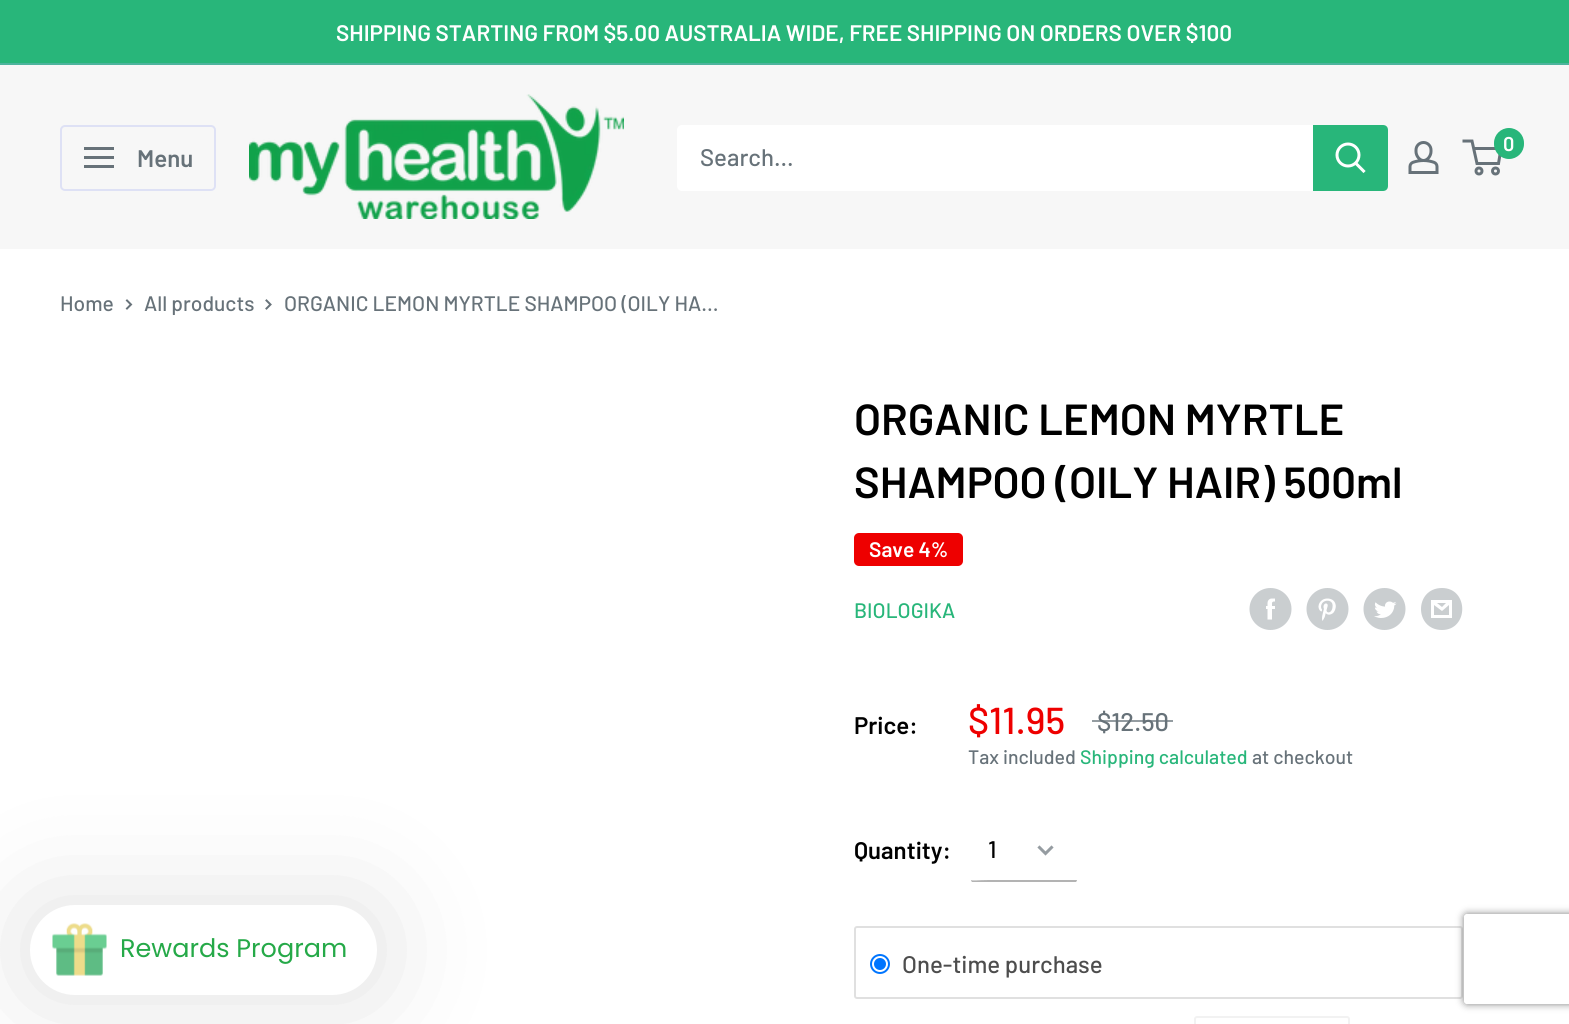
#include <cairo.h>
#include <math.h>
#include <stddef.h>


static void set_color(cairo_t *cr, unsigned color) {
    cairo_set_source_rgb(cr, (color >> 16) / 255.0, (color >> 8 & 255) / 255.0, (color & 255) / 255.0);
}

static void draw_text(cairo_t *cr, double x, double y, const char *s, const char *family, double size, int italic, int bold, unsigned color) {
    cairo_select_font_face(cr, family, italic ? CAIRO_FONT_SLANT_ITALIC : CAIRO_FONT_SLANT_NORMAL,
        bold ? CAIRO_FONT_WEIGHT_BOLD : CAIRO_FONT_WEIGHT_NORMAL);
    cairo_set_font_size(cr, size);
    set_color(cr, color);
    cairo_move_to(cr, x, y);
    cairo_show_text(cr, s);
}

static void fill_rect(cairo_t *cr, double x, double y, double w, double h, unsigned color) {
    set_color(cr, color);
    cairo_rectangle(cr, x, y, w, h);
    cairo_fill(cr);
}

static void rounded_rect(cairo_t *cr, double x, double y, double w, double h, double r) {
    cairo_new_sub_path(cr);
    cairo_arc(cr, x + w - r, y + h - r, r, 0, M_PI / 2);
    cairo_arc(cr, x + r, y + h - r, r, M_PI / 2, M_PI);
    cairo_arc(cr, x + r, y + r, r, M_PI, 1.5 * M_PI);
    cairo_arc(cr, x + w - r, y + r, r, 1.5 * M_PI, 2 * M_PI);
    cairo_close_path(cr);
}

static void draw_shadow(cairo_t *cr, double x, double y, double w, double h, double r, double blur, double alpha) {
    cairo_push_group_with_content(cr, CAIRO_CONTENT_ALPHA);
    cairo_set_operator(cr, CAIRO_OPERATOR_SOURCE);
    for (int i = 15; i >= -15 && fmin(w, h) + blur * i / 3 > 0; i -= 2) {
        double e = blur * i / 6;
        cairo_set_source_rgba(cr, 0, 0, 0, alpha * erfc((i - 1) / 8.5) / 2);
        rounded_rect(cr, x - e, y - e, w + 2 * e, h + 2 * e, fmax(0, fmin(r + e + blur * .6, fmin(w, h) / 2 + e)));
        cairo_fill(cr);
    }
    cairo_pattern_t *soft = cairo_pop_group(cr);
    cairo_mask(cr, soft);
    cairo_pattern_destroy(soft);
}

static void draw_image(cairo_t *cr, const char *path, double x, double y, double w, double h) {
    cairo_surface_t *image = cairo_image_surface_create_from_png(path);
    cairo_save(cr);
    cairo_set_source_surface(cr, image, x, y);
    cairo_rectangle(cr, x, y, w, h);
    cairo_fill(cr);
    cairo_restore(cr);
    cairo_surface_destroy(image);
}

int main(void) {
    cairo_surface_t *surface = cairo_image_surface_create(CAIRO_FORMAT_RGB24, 1569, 1024);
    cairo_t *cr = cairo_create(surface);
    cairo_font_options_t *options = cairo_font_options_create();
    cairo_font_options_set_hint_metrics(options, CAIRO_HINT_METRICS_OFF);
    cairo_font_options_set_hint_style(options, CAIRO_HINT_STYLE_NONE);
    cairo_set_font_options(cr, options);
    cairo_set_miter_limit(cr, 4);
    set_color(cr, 0xFFFFFF);
    cairo_paint(cr);
    fill_rect(cr, 0, 0, 1569, 63, 0x28B67A);
    fill_rect(cr, 0, 63, 1569, 2, 0x4DB49D);
    draw_text(cr, 336, 41, "SHIPPING STARTING FROM $5.00 AUSTRALIA WIDE, FREE SHIPPING ON ORDERS OVER $100", "Barlow SemiBold", 22.5, 0, 0, 0xFFFFFF);
    fill_rect(cr, 0, 65, 1569, 184, 0xF7F7F7);
    draw_image(cr, "assets/img1.png", 249, 94, 375, 125);
    draw_image(cr, "assets/img2.png", 1408, 141, 31, 33);
    cairo_arc(cr, 1479, 171, 3, 0, 2 * M_PI);
    set_color(cr, 0x677279);
    cairo_set_line_width(cr, 3);
    cairo_stroke(cr);
    cairo_arc(cr, 1495.5, 171, 3, 0, 2 * M_PI);
    cairo_stroke(cr);
    cairo_new_path(cr);
    cairo_move_to(cr, 1473.5, 148.5);
    cairo_line_to(cr, 1501, 148.5);
    cairo_line_to(cr, 1498.5, 163.5);
    cairo_line_to(cr, 1477, 163.5);
    cairo_line_to(cr, 1472, 141);
    cairo_line_to(cr, 1462.5, 141);
    cairo_stroke(cr);
    set_color(cr, 0x28B67A);
    rounded_rect(cr, 1494, 128, 30, 31, 15);
    cairo_fill(cr);
    draw_text(cr, 1503, 151, "0", "Barlow SemiBold", 20, 0, 0, 0xFFFFFF);
    rounded_rect(cr, 61, 126, 154, 64, 4);
    set_color(cr, 0xDEE1F5);
    cairo_set_line_width(cr, 2);
    cairo_stroke(cr);
    draw_image(cr, "assets/img3.png", 84, 147, 30, 21);
    draw_text(cr, 137, 167, "Menu", "Barlow SemiBold", 24, 0, 0, 0x677279);
    set_color(cr, 0xFFFFFF);
    rounded_rect(cr, 677, 125, 711, 66, 5);
    cairo_fill(cr);
    draw_text(cr, 700, 166, "Search...", "Barlow Medium", 24, 0, 0, 0x677279);
    set_color(cr, 0x28B67A);
    cairo_new_path(cr);
    cairo_move_to(cr, 1313, 125);
    cairo_line_to(cr, 1383, 125);
    cairo_curve_to(cr, 1386, 125, 1388, 127, 1388, 130);
    cairo_line_to(cr, 1388, 186);
    cairo_curve_to(cr, 1388, 189, 1386, 191, 1383, 191);
    cairo_line_to(cr, 1313, 191);
    cairo_close_path(cr);
    cairo_fill(cr);
    cairo_new_path(cr);
    cairo_move_to(cr, 1363.5, 171);
    cairo_line_to(cr, 1356, 163.5);
    set_color(cr, 0xFFFFFF);
    cairo_set_line_width(cr, 3);
    cairo_set_line_cap(cr, CAIRO_LINE_CAP_SQUARE);
    cairo_stroke(cr);
    cairo_arc(cr, 1348, 155, 11, 0, 2 * M_PI);
    cairo_set_line_cap(cr, CAIRO_LINE_CAP_BUTT);
    cairo_stroke(cr);
    draw_text(cr, 60, 311, "Home", "Barlow Medium", 21, 0, 0, 0x677279);
    cairo_new_path(cr);
    cairo_move_to(cr, 127, 300.5);
    cairo_line_to(cr, 131, 304.5);
    cairo_line_to(cr, 127, 308.5);
    cairo_set_line_width(cr, 2);
    cairo_set_line_cap(cr, CAIRO_LINE_CAP_SQUARE);
    cairo_stroke(cr);
    draw_text(cr, 144, 311, "All products", "Barlow Medium", 21, 0, 0, 0x677279);
    cairo_new_path(cr);
    cairo_move_to(cr, 266.5, 300.5);
    cairo_line_to(cr, 270.5, 304.5);
    cairo_line_to(cr, 266.5, 308.5);
    cairo_stroke(cr);
    draw_text(cr, 284, 311, "ORGANIC LEMON MYRTLE SHAMPOO (OILY HA...", "Barlow Medium", 21, 0, 0, 0x677279);
    draw_text(cr, 854, 435, "ORGANIC LEMON MYRTLE", "Barlow SemiBold", 43.5, 0, 0, 0x000000);
    draw_text(cr, 854, 498, "SHAMPOO (OILY HAIR) 500ml", "Barlow SemiBold", 43.5, 0, 0, 0x000000);
    set_color(cr, 0xEE0000);
    rounded_rect(cr, 854, 533, 109, 33, 5);
    cairo_fill(cr);
    draw_text(cr, 869, 557, "Save 4%", "Barlow SemiBold", 21, 0, 0, 0xFFFFFF);
    draw_text(cr, 854, 618, "BIOLOGIKA", "Barlow Medium", 21, 0, 0, 0x28B67A);
    draw_image(cr, "assets/img4.png", 1249, 588, 43, 42);
    draw_image(cr, "assets/img5.png", 1306, 588, 43, 42);
    draw_image(cr, "assets/img6.png", 1363, 588, 43, 42);
    set_color(cr, 0xCACED0);
    cairo_new_path(cr);
    cairo_move_to(cr, 1442, 630);
    cairo_curve_to(cr, 1414, 630, 1414, 588, 1442, 588);
    cairo_curve_to(cr, 1469, 588, 1469, 630, 1442, 630);
    cairo_close_path(cr);
    cairo_move_to(cr, 1437, 603);
    cairo_line_to(cr, 1446, 603);
    cairo_line_to(cr, 1442, 607);
    cairo_close_path(cr);
    cairo_move_to(cr, 1449, 605);
    cairo_line_to(cr, 1449, 615);
    cairo_line_to(cr, 1434, 615);
    cairo_line_to(cr, 1434, 605);
    cairo_line_to(cr, 1442, 611);
    cairo_close_path(cr);
    cairo_move_to(cr, 1452, 600);
    cairo_line_to(cr, 1431, 600);
    cairo_line_to(cr, 1431, 618);
    cairo_line_to(cr, 1452, 618);
    cairo_close_path(cr);
    cairo_fill(cr);
    draw_text(cr, 854, 734, "Price:", "Barlow SemiBold", 24, 0, 0, 0x000000);
    draw_text(cr, 968, 734, "$11.95", "Barlow Medium", 37.5, 0, 0, 0xEE0000);
    draw_text(cr, 1097, 731, "$12.50", "Barlow Medium", 25.5, 0, 0, 0x677279);
    cairo_set_source_rgba(cr, 0.404, 0.447, 0.475, 0.7);
    cairo_rectangle(cr, 1092, 720, 81, 2);
    cairo_fill(cr);
    draw_text(cr, 968, 764, "Tax included", "Barlow Medium", 19.5, 0, 0, 0x677279);
    draw_text(cr, 1080, 764, "Shipping calculated", "Barlow Medium", 19.5, 0, 0, 0x28B67A);
    draw_text(cr, 1252, 764, "at checkout", "Barlow Medium", 19.5, 0, 0, 0x677279);
    draw_text(cr, 854, 859, "Quantity:", "Barlow SemiBold", 24, 0, 0, 0x000000);
    set_color(cr, 0xB3B3B3);
    cairo_new_path(cr);
    cairo_move_to(cr, 971, 880);
    cairo_curve_to(cr, 971, 881, 972, 882, 972, 882);
    cairo_line_to(cr, 1076, 882);
    cairo_curve_to(cr, 1076, 882, 1077, 881, 1077, 880);
    cairo_line_to(cr, 989, 880);
    cairo_curve_to(cr, 978, 880, 973, 881, 971, 880);
    cairo_close_path(cr);
    cairo_fill(cr);
    draw_text(cr, 988, 858, "1", "Barlow Medium", 24, 0, 0, 0x000000);
    cairo_new_path(cr);
    cairo_move_to(cr, 1051.5, 847.5);
    cairo_line_to(cr, 1045.5, 853.5);
    cairo_line_to(cr, 1039.5, 847.5);
    set_color(cr, 0x959CA1);
    cairo_set_line_width(cr, 3);
    cairo_stroke(cr);
    rounded_rect(cr, 855, 927, 607, 71, 2);
    set_color(cr, 0xE0E0E0);
    cairo_set_line_width(cr, 2);
    cairo_set_line_cap(cr, CAIRO_LINE_CAP_BUTT);
    cairo_stroke(cr);
    cairo_arc(cr, 880, 964, 9, 0, 2 * M_PI);
    set_color(cr, 0x0075FF);
    cairo_stroke(cr);
    cairo_arc(cr, 880, 964, 6, 0, 2 * M_PI);
    cairo_fill(cr);
    draw_text(cr, 902, 973, "One-time purchase", "Barlow Medium", 24, 0, 0, 0x4D4D4D);
    rounded_rect(cr, 1195, 1017, 154, 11, 2);
    set_color(cr, 0xF2F2F2);
    cairo_stroke(cr);
    cairo_save(cr);
    cairo_set_fill_rule(cr, CAIRO_FILL_RULE_EVEN_ODD);
    cairo_new_path(cr);
    cairo_move_to(cr, 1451, 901);
    cairo_line_to(cr, 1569, 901);
    cairo_line_to(cr, 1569, 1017);
    cairo_line_to(cr, 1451, 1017);
    cairo_close_path(cr);
    cairo_move_to(cr, 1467, 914);
    cairo_line_to(cr, 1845, 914);
    cairo_curve_to(cr, 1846.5, 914, 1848, 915.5, 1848, 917);
    cairo_line_to(cr, 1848, 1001);
    cairo_curve_to(cr, 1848, 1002.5, 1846.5, 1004, 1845, 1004);
    cairo_line_to(cr, 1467, 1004);
    cairo_curve_to(cr, 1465.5, 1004, 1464, 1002.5, 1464, 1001);
    cairo_line_to(cr, 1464, 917);
    cairo_curve_to(cr, 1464, 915.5, 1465.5, 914, 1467, 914);
    cairo_close_path(cr);
    cairo_clip(cr);
    set_color(cr, 0x808080);
    draw_shadow(cr, 1464, 914, 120, 90, 3, 4, 1);
    cairo_restore(cr);
    set_color(cr, 0x000000);
    draw_shadow(cr, 30, 905, 347, 90, 45, 60, 0.12);
    set_color(cr, 0xFFFFFF);
    rounded_rect(cr, 30, 905, 347, 90, 45);
    cairo_fill(cr);
    draw_image(cr, "assets/img7.png", 52, 923, 55, 53);
    draw_text(cr, 120, 957, "Rewards Program", "Poppins", 25.5, 0, 0, 0x25A948);
    cairo_surface_write_to_png(surface, "output.png");
    cairo_font_options_destroy(options);
    cairo_destroy(cr);
    cairo_surface_destroy(surface);
    return 0;
}
